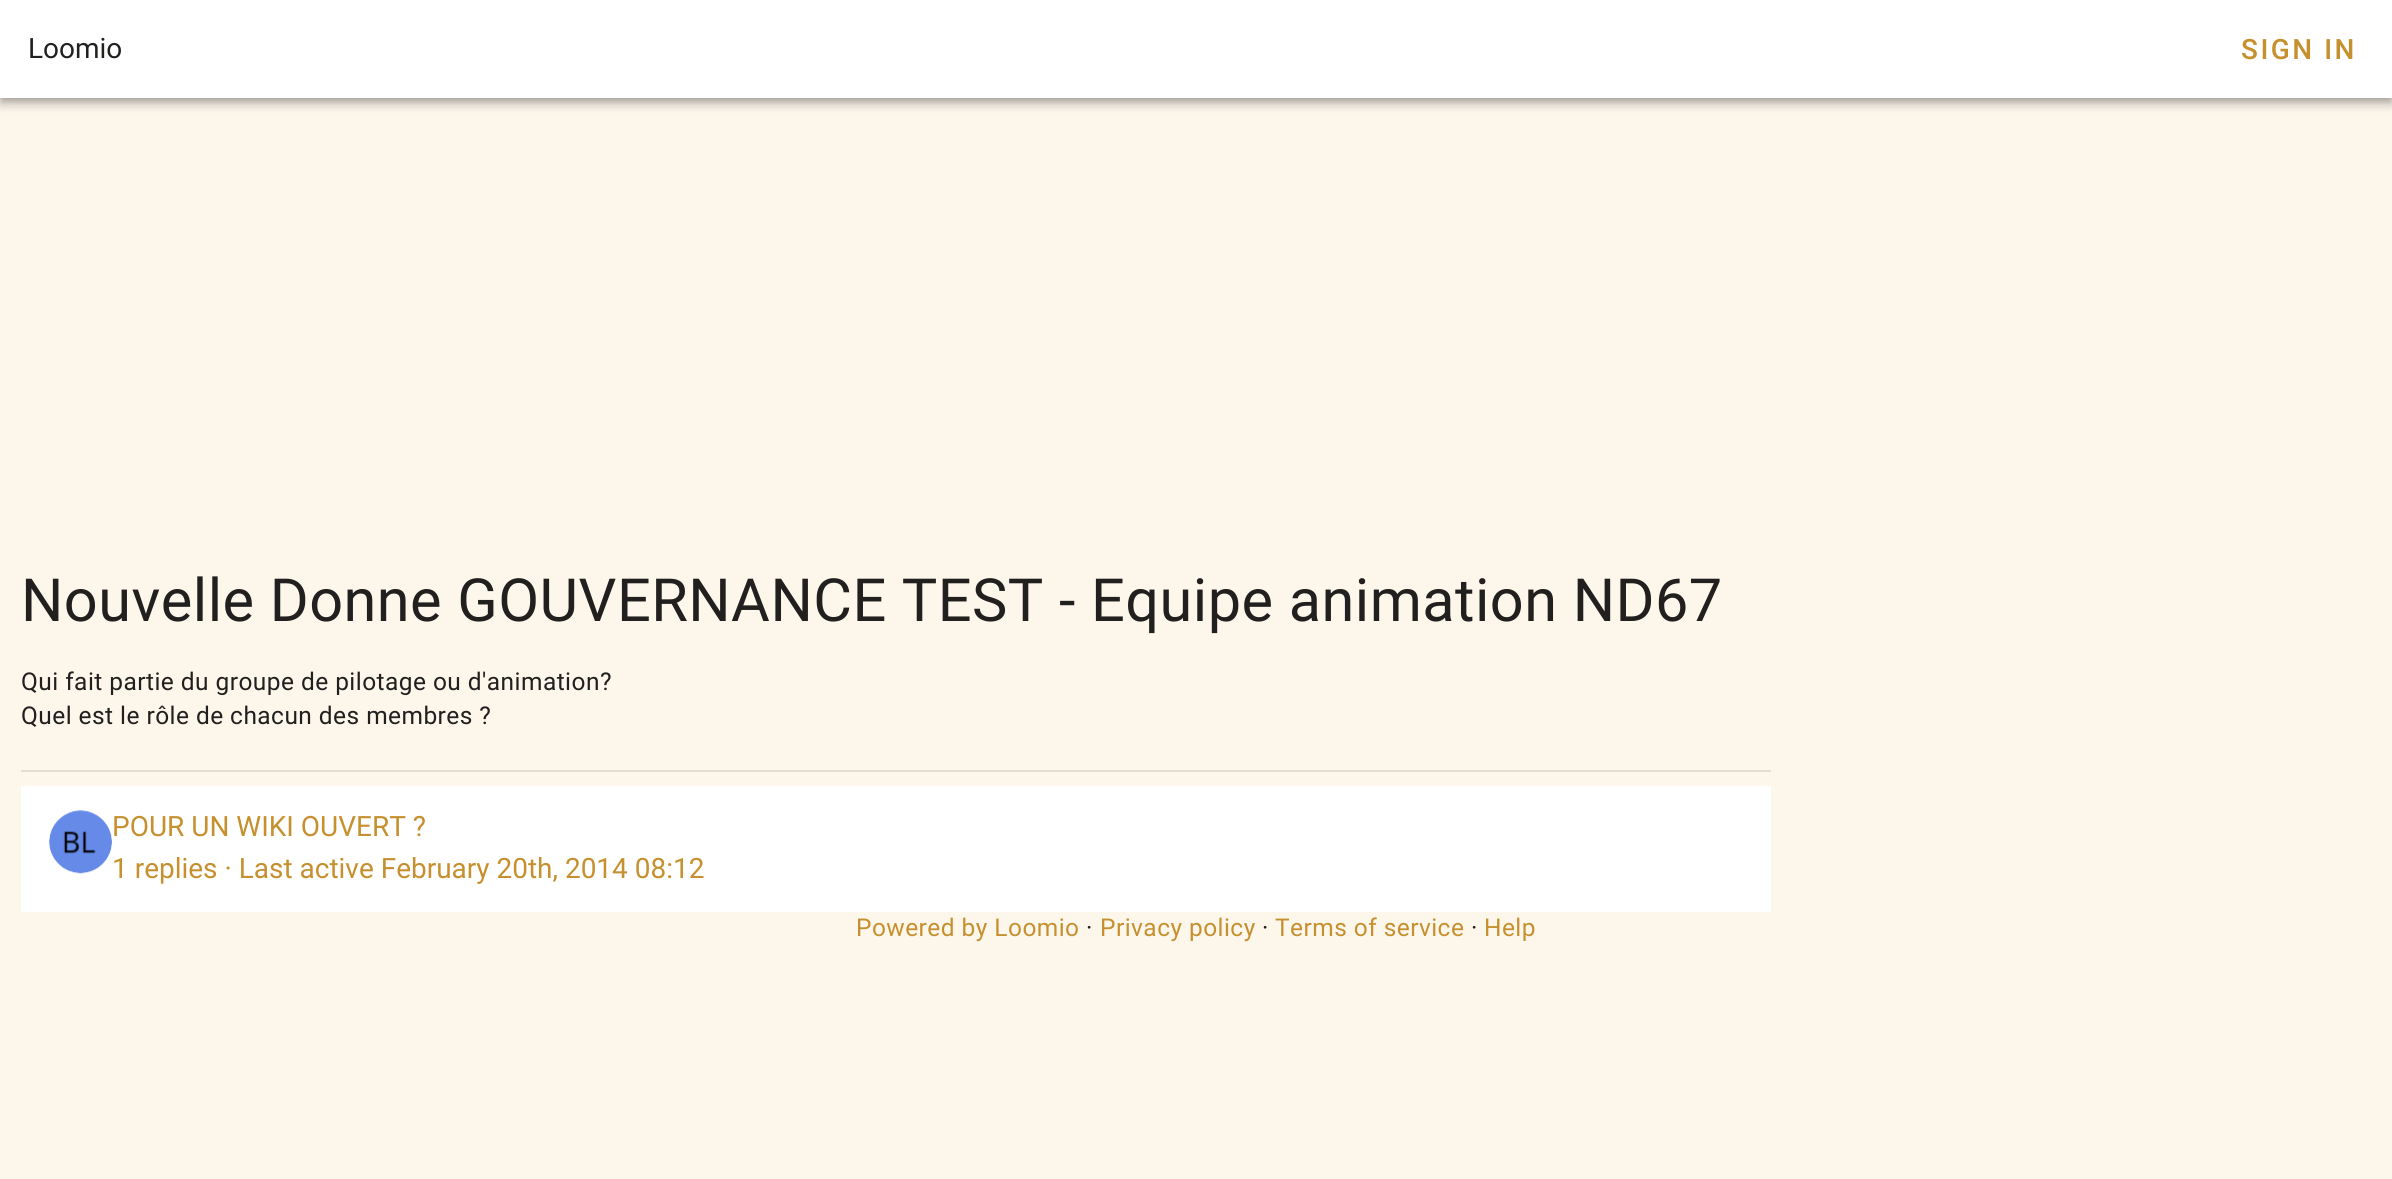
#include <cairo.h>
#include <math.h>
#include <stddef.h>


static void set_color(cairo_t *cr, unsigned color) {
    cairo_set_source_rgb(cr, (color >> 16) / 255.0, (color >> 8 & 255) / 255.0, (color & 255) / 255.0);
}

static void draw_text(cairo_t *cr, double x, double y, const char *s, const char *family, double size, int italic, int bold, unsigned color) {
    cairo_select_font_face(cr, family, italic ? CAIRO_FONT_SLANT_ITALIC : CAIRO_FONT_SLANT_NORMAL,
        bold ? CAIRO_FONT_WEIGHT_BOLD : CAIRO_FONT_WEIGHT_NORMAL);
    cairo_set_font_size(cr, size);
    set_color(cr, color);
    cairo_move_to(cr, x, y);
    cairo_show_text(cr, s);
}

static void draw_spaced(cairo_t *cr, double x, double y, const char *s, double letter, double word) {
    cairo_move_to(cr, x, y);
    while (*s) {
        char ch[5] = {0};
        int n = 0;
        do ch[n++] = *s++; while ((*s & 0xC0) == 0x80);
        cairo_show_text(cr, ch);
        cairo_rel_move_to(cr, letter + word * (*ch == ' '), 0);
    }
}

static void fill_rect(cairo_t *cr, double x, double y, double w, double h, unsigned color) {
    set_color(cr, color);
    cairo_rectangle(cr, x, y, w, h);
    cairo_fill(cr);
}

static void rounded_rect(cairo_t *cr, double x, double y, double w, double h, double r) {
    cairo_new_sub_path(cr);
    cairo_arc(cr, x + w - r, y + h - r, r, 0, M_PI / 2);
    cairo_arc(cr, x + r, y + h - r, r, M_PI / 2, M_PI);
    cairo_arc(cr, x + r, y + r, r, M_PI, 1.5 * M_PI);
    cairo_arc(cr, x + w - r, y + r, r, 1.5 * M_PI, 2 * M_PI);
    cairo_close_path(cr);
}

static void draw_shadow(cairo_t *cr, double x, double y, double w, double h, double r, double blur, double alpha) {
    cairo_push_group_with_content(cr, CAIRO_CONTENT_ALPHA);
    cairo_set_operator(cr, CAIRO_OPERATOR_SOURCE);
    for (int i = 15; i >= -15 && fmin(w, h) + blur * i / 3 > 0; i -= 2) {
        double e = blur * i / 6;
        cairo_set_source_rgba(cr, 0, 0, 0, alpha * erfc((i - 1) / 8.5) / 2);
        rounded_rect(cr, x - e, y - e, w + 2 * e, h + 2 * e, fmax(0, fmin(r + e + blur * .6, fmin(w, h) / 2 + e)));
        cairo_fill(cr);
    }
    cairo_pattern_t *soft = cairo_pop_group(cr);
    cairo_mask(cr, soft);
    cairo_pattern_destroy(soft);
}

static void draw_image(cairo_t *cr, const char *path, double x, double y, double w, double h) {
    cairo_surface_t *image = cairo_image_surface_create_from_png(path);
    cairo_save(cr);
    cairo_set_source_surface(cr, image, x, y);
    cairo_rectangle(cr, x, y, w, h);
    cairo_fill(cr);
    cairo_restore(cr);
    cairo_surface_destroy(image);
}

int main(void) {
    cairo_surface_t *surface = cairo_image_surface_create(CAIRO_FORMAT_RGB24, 2392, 1179);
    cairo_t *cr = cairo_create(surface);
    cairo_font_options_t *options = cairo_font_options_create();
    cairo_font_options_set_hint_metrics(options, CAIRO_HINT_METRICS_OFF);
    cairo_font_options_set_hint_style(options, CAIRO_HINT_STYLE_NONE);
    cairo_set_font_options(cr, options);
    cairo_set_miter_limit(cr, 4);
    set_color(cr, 0xFCF6EB);
    cairo_paint(cr);
    set_color(cr, 0x000000);
    draw_shadow(cr, 0, 2, 2392, 98, 0, 9, 0.12);
    draw_shadow(cr, 0, 7, 2392, 98, 0, 4.5, 0.14);
    draw_shadow(cr, 2, 5, 2389, 95, 0, 3.5, 0.2);
    fill_rect(cr, 0, 0, 2392, 98, 0xFFFFFF);
    draw_text(cr, 28, 58, "Loomio", "Roboto", 28, 0, 0, 0x21201F);
    rounded_rect(cr, 2240, 35, 115, 30, 5);
    set_color(cr, 0xFFFFFF);
    cairo_set_line_width(cr, 4);
    cairo_stroke(cr);
    cairo_select_font_face(cr, "Roboto Medium", CAIRO_FONT_SLANT_NORMAL, CAIRO_FONT_WEIGHT_NORMAL);
    set_color(cr, 0xC6902F);
    draw_spaced(cr, 2241, 59, "SIGN IN", 2.5, 0);
    cairo_select_font_face(cr, "Roboto", CAIRO_FONT_SLANT_NORMAL, CAIRO_FONT_WEIGHT_NORMAL);
    cairo_set_font_size(cr, 59.5);
    set_color(cr, 0x21201F);
    draw_spaced(cr, 21, 621, "Nouvelle Donne GOUVERNANCE TEST - Equipe animation ND67", 0.45, 0);
    cairo_set_font_size(cr, 24.5);
    draw_spaced(cr, 21, 690, "Qui fait partie du groupe de pilotage ou d'animation?", 0.45, 0);
    draw_spaced(cr, 21, 724, "Quel est le rôle de chacun des membres ?", 0.45, 0);
    fill_rect(cr, 21, 770, 1750, 2, 0xE2DCD3);
    fill_rect(cr, 21, 786, 1750, 126, 0xFFFFFF);
    draw_image(cr, "assets/img1.png", 49, 810, 63, 64);
    draw_text(cr, 112, 836, "POUR UN WIKI OUVERT ?", "Roboto", 28, 0, 0, 0xC6902F);
    draw_text(cr, 112, 878, "1 replies · Last active February 20th, 2014 08:12", "Roboto", 28, 0, 0, 0xC6902F);
    cairo_set_font_size(cr, 24.5);
    draw_spaced(cr, 856, 936, "Powered by Loomio", 0.45, 0);
    set_color(cr, 0x21201F);
    draw_spaced(cr, 1086, 936, "·", 0.45, 0);
    set_color(cr, 0xC6902F);
    draw_spaced(cr, 1100, 936, "Privacy policy", 0.45, 0);
    set_color(cr, 0x21201F);
    draw_spaced(cr, 1262, 936, "·", 0.45, 0);
    set_color(cr, 0xC6902F);
    draw_spaced(cr, 1275, 936, "Terms of service", 0.45, 0);
    set_color(cr, 0x21201F);
    draw_spaced(cr, 1471, 936, "·", 0.45, 0);
    set_color(cr, 0xC6902F);
    draw_spaced(cr, 1484, 936, "Help", 0.45, 0);
    cairo_surface_write_to_png(surface, "output.png");
    cairo_font_options_destroy(options);
    cairo_destroy(cr);
    cairo_surface_destroy(surface);
    return 0;
}
